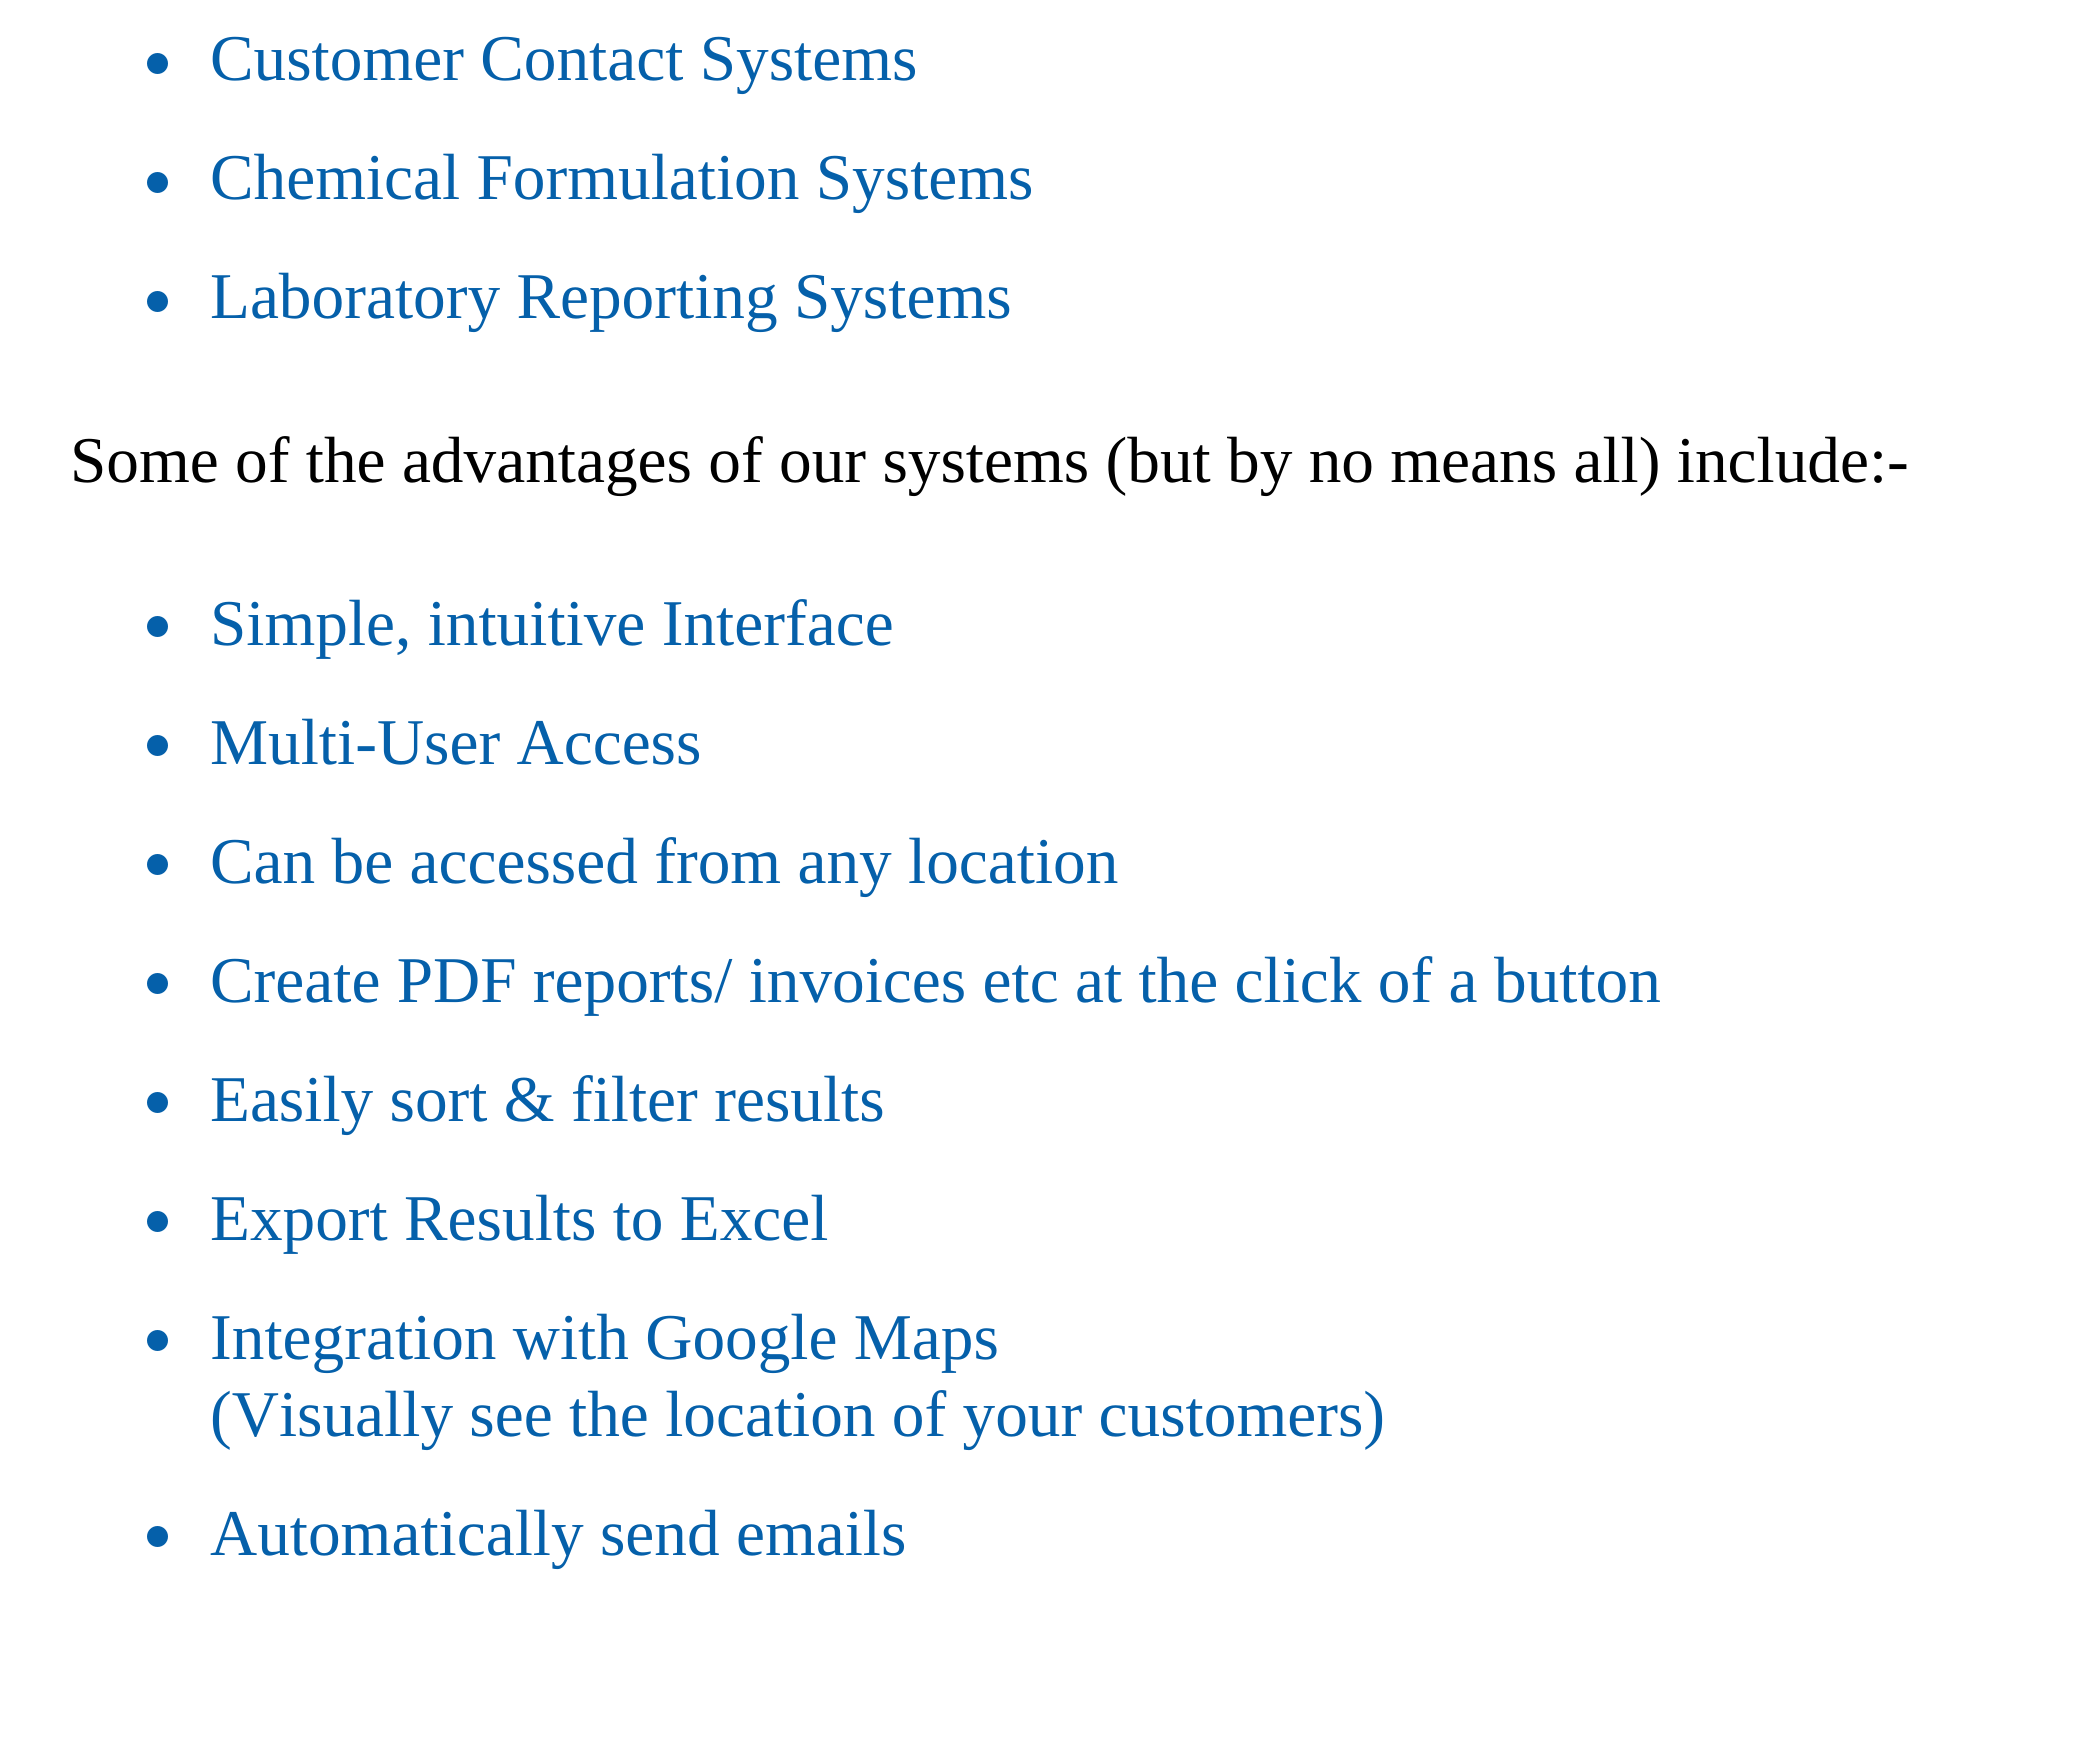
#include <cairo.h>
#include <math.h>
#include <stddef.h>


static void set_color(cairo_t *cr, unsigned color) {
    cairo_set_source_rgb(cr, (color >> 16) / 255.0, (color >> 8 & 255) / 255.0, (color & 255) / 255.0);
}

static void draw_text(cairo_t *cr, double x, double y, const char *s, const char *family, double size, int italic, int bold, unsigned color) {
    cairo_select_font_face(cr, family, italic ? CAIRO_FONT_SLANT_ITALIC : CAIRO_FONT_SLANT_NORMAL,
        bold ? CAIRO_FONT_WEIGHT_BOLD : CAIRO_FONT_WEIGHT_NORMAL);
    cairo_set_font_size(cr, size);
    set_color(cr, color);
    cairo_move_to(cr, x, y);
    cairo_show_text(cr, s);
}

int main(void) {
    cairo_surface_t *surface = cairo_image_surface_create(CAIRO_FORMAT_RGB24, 2092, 1740);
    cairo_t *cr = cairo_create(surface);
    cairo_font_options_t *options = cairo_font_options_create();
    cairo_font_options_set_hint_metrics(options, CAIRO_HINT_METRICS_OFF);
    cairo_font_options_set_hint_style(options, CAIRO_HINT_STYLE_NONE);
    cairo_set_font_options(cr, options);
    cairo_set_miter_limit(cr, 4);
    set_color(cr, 0xFFFFFF);
    cairo_paint(cr);
    set_color(cr, 0x0560AA);
    cairo_arc(cr, 157.5, 63.5, 10.5, 0, 2 * M_PI);
    cairo_fill(cr);
    draw_text(cr, 210, 80, "Customer Contact Systems", "Liberation Serif", 65.3, 0, 0, 0x0560AA);
    cairo_new_path(cr);
    cairo_arc(cr, 157.5, 182.5, 10.5, 0, 2 * M_PI);
    cairo_fill(cr);
    draw_text(cr, 210, 199, "Chemical Formulation Systems", "Liberation Serif", 65.3, 0, 0, 0x0560AA);
    cairo_new_path(cr);
    cairo_arc(cr, 157.5, 301.5, 10.5, 0, 2 * M_PI);
    cairo_fill(cr);
    draw_text(cr, 210, 318, "Laboratory Reporting Systems", "Liberation Serif", 65.3, 0, 0, 0x0560AA);
    draw_text(cr, 70, 482, "Some of the advantages of our systems (but by no means all) include:-", "Liberation Serif", 65.3, 0, 0, 0x000000);
    set_color(cr, 0x0560AA);
    cairo_new_path(cr);
    cairo_arc(cr, 157.5, 626.5, 10.5, 0, 2 * M_PI);
    cairo_fill(cr);
    draw_text(cr, 210, 645, "Simple, intuitive Interface", "Liberation Serif", 65.3, 0, 0, 0x0560AA);
    cairo_new_path(cr);
    cairo_arc(cr, 157.5, 745.5, 10.5, 0, 2 * M_PI);
    cairo_fill(cr);
    draw_text(cr, 210, 764, "Multi-User Access", "Liberation Serif", 65.3, 0, 0, 0x0560AA);
    cairo_new_path(cr);
    cairo_arc(cr, 157.5, 864.5, 10.5, 0, 2 * M_PI);
    cairo_fill(cr);
    draw_text(cr, 210, 883, "Can be accessed from any location", "Liberation Serif", 65.3, 0, 0, 0x0560AA);
    cairo_new_path(cr);
    cairo_arc(cr, 157.5, 983.5, 10.5, 0, 2 * M_PI);
    cairo_fill(cr);
    draw_text(cr, 210, 1002, "Create PDF reports/ invoices etc at the click of a", "Liberation Serif", 65.3, 0, 0, 0x0560AA);
    draw_text(cr, 1494, 1002, "button", "Liberation Serif", 65.3, 0, 0, 0x0560AA);
    cairo_new_path(cr);
    cairo_arc(cr, 157.5, 1102.5, 10.5, 0, 2 * M_PI);
    cairo_fill(cr);
    draw_text(cr, 210, 1121, "Easily sort & filter results", "Liberation Serif", 65.3, 0, 0, 0x0560AA);
    cairo_new_path(cr);
    cairo_arc(cr, 157.5, 1221.5, 10.5, 0, 2 * M_PI);
    cairo_fill(cr);
    draw_text(cr, 210, 1240, "Export Results to Excel", "Liberation Serif", 65.3, 0, 0, 0x0560AA);
    cairo_new_path(cr);
    cairo_arc(cr, 157.5, 1340.5, 10.5, 0, 2 * M_PI);
    cairo_fill(cr);
    draw_text(cr, 210, 1359, "Integration with Google Maps", "Liberation Serif", 65.3, 0, 0, 0x0560AA);
    draw_text(cr, 210, 1436, "(Visually see the location of your customers)", "Liberation Serif", 65.3, 0, 0, 0x0560AA);
    cairo_new_path(cr);
    cairo_arc(cr, 157.5, 1536.5, 10.5, 0, 2 * M_PI);
    cairo_fill(cr);
    draw_text(cr, 210, 1555, "Automatically send emails", "Liberation Serif", 65.3, 0, 0, 0x0560AA);
    cairo_surface_write_to_png(surface, "output.png");
    cairo_font_options_destroy(options);
    cairo_destroy(cr);
    cairo_surface_destroy(surface);
    return 0;
}
